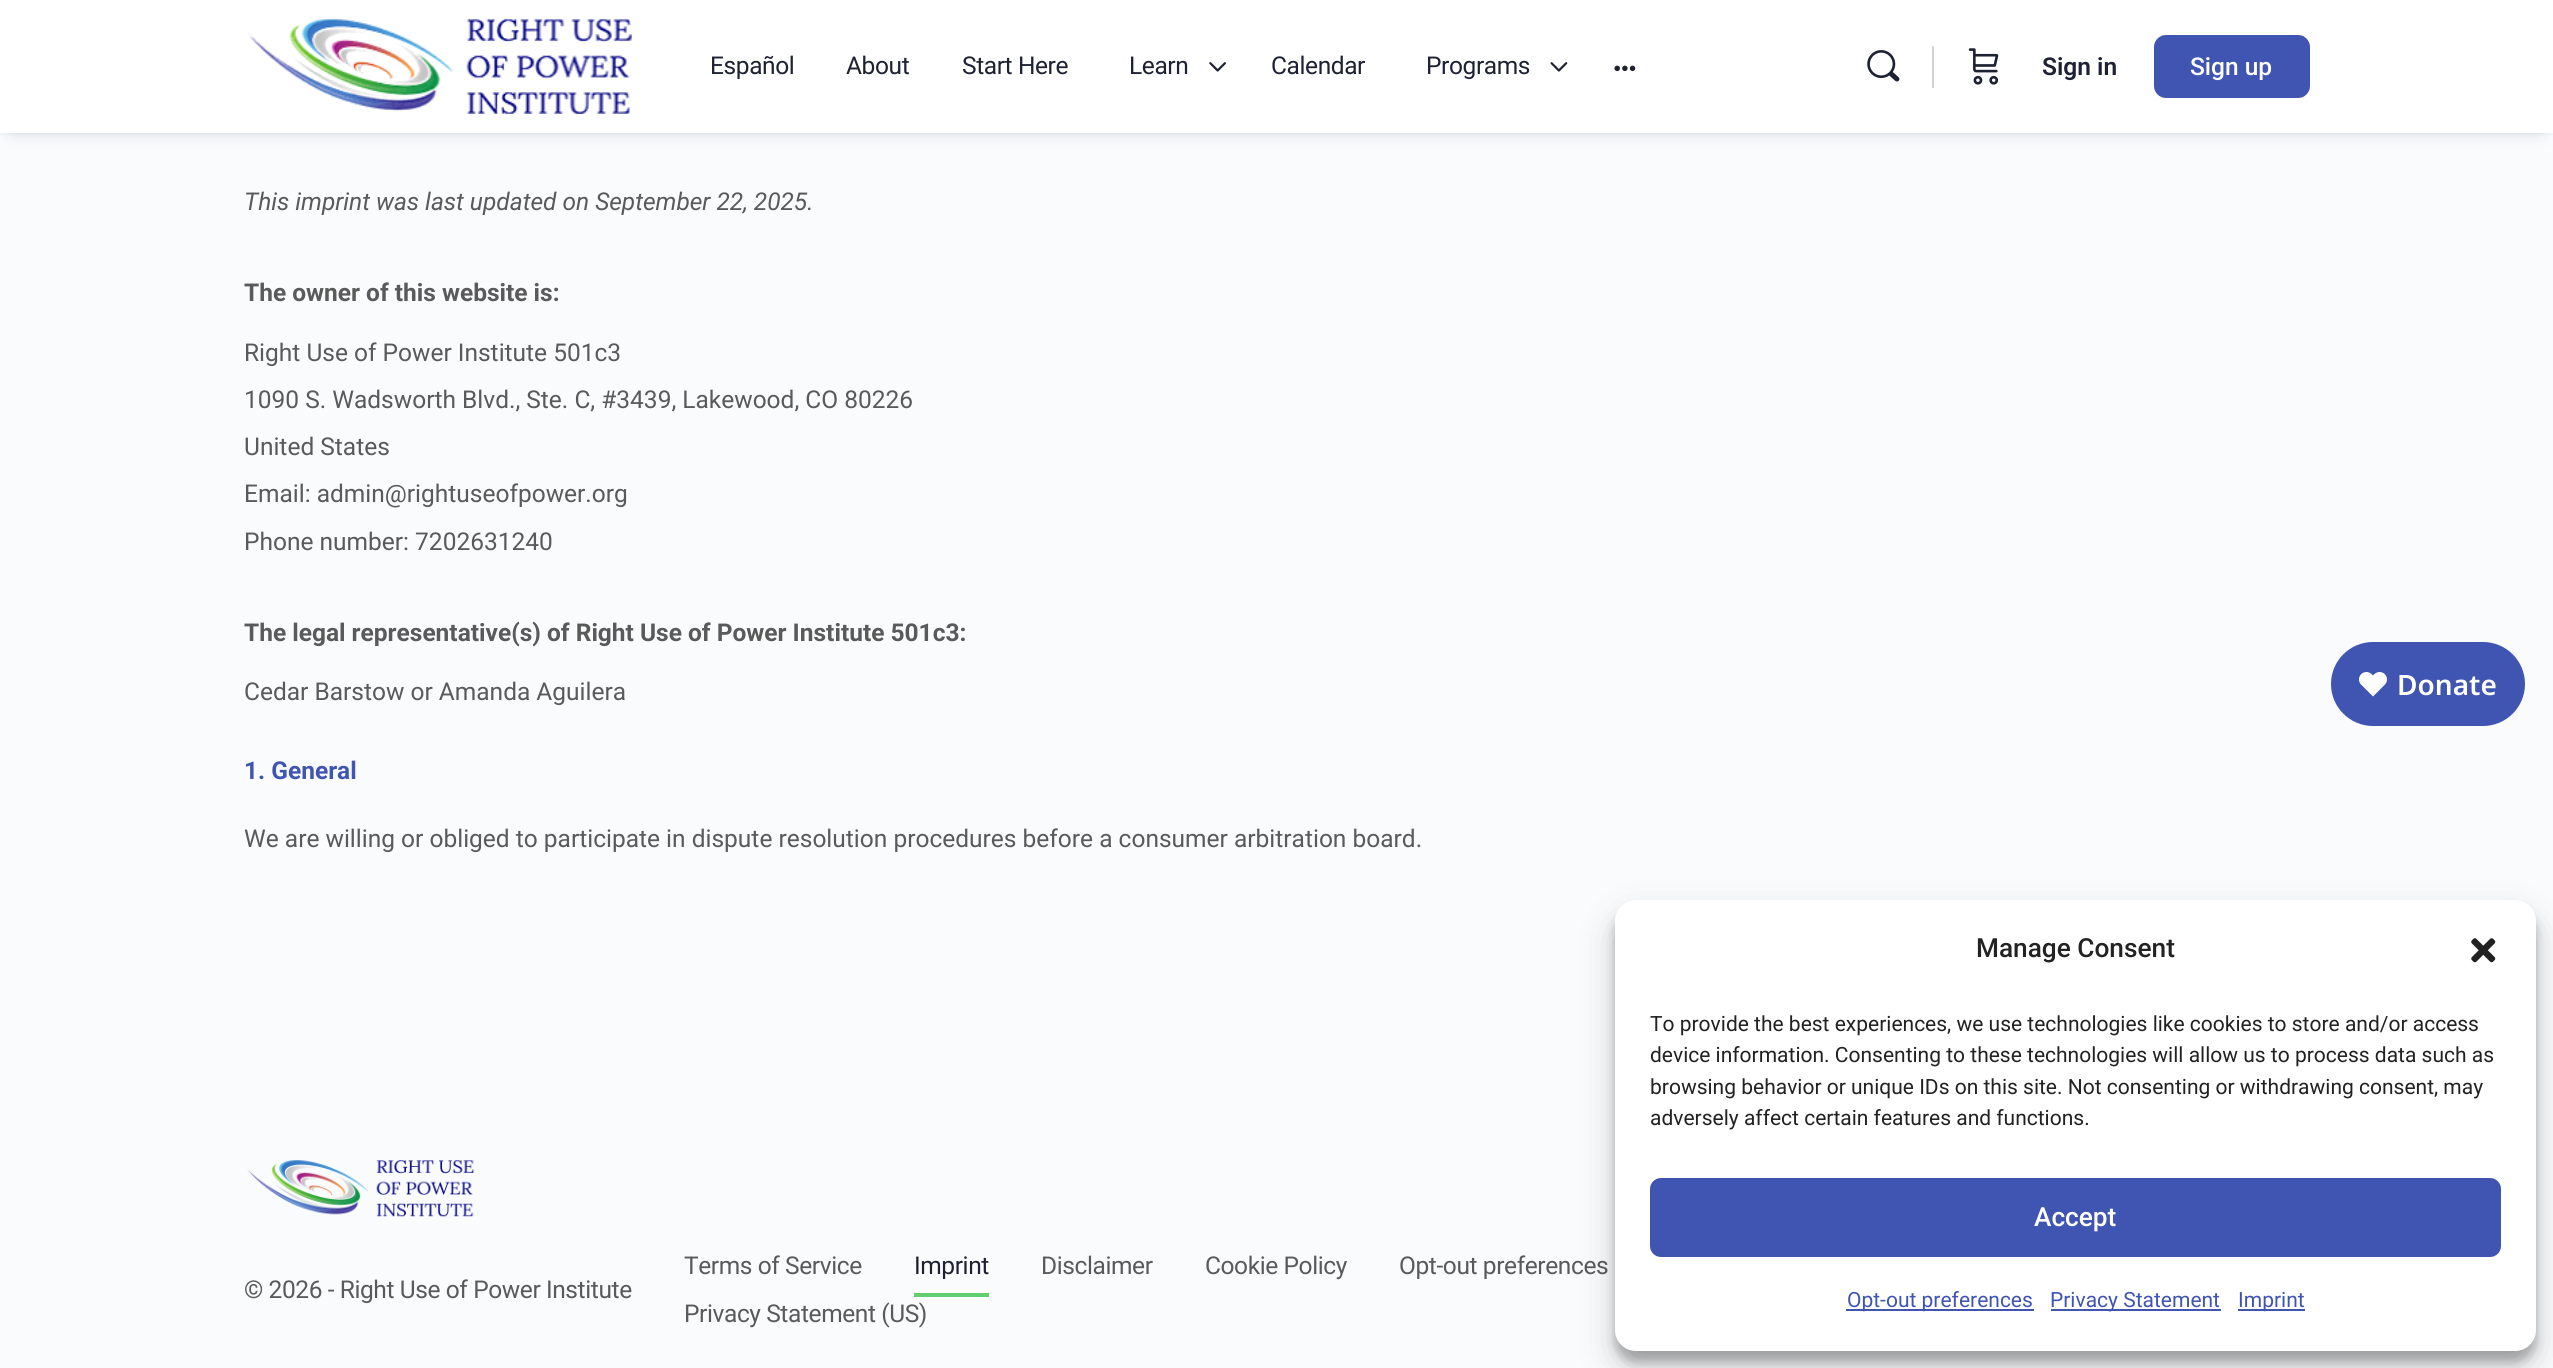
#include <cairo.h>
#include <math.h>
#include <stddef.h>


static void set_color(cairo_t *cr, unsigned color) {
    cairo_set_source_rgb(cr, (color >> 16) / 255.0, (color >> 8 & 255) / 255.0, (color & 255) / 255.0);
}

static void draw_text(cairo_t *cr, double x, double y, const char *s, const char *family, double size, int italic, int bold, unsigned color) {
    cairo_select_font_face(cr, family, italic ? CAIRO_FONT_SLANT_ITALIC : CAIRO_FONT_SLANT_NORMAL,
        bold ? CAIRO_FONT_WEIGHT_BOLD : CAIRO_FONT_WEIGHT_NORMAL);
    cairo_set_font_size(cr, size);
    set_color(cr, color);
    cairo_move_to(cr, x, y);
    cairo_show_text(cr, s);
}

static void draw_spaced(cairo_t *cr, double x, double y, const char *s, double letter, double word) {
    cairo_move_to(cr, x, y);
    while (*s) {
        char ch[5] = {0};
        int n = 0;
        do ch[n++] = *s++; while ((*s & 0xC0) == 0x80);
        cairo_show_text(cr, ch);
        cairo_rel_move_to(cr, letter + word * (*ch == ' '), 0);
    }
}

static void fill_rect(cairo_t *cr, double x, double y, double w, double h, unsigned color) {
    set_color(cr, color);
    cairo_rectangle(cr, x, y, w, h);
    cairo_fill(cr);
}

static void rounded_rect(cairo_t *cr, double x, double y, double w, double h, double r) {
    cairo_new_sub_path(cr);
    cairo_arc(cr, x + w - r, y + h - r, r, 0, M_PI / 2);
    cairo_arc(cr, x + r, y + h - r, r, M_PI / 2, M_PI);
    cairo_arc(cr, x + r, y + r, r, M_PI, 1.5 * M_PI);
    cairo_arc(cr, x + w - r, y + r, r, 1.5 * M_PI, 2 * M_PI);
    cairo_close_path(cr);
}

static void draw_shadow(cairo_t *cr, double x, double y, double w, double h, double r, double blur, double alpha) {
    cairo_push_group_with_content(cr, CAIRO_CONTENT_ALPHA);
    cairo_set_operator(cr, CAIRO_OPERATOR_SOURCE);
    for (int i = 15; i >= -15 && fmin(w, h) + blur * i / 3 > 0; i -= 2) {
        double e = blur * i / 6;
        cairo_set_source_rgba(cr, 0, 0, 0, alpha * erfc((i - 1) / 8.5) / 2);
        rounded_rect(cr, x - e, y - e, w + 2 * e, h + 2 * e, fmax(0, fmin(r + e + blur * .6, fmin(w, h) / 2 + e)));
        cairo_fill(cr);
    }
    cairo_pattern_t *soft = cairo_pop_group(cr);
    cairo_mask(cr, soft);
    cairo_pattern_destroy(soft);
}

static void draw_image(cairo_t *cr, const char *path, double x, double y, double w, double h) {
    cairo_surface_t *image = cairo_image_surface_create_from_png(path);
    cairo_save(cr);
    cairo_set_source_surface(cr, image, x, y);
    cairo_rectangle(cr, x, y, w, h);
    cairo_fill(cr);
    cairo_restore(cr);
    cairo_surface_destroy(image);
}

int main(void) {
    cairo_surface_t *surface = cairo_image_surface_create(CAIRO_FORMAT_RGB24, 2553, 1368);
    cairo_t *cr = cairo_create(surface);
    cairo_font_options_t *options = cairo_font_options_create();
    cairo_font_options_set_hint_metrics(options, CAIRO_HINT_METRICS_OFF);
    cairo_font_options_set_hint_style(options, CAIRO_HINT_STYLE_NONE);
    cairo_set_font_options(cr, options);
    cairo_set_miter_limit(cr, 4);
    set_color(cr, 0xFAFBFD);
    cairo_paint(cr);
    set_color(cr, 0x41476C);
    draw_shadow(cr, 12, 21, 2529, 109, 0, 9, 0.25);
    cairo_set_source_rgba(cr, 0.545, 0.553, 0.616, 0.05);
    cairo_rectangle(cr, 0, 133, 2553, 2);
    cairo_fill(cr);
    fill_rect(cr, 0, 0, 2553, 133, 0xFFFFFF);
    draw_image(cr, "assets/img1.png", 247, 18, 385, 96);
    cairo_select_font_face(cr, "Roboto", CAIRO_FONT_SLANT_NORMAL, CAIRO_FONT_WEIGHT_NORMAL);
    cairo_set_font_size(cr, 24.5);
    set_color(cr, 0x1E2132);
    draw_spaced(cr, 710, 74, "Español", -0.4, 0);
    draw_spaced(cr, 846, 74, "About", -0.4, 0);
    draw_spaced(cr, 962, 74, "Start Here", -0.4, 0);
    draw_spaced(cr, 1129, 74, "Learn", -0.4, 0);
    draw_image(cr, "assets/img2.png", 1209, 62, 17, 10);
    draw_spaced(cr, 1271, 74, "Calendar", -0.4, 0);
    draw_spaced(cr, 1426, 74, "Programs", -0.4, 0);
    draw_image(cr, "assets/img3.png", 1550, 62, 18, 10);
    draw_image(cr, "assets/img4.png", 1614, 65, 22, 7);
    draw_image(cr, "assets/img5.png", 1867, 50, 33, 32);
    fill_rect(cr, 1932, 46, 2, 42, 0xD2D3D6);
    draw_image(cr, "assets/img6.png", 1968, 48, 31, 37);
    draw_text(cr, 2042, 75, "Sign in", "Roboto SemiBold", 24.5, 0, 0, 0x1E2132);
    set_color(cr, 0x4054B2);
    rounded_rect(cr, 2155, 36, 154, 61, 11);
    cairo_fill_preserve(cr);
    cairo_stroke(cr);
    draw_text(cr, 2190, 75, "Sign up", "Roboto Medium", 24.5, 0, 0, 0xFFFFFF);
    draw_text(cr, 244, 210, "This imprint was last updated on September 22, 2025.", "Roboto", 24.5, 1, 0, 0x5A5A5A);
    draw_text(cr, 244, 301, "The owner of this website is:", "Roboto", 24.5, 0, 1, 0x5A5A5A);
    draw_text(cr, 244, 361, "Right Use of Power Institute 501c3", "Roboto", 24.5, 0, 0, 0x5A5A5A);
    draw_text(cr, 244, 408, "1090 S. Wadsworth Blvd., Ste. C, #3439, Lakewood, CO 80226", "Roboto", 24.5, 0, 0, 0x5A5A5A);
    draw_text(cr, 244, 455, "United States", "Roboto", 24.5, 0, 0, 0x5A5A5A);
    draw_text(cr, 244, 502, "Email: admin@rightuseofpower.org", "Roboto", 24.5, 0, 0, 0x5A5A5A);
    draw_text(cr, 244, 550, "Phone number: 7202631240", "Roboto", 24.5, 0, 0, 0x5A5A5A);
    draw_text(cr, 244, 641, "The legal representative(s) of Right Use of Power Institute 501c3:", "Roboto", 24.5, 0, 1, 0x5A5A5A);
    draw_text(cr, 244, 700, "Cedar Barstow or Amanda Aguilera", "Roboto", 24.5, 0, 0, 0x5A5A5A);
    draw_text(cr, 244, 779, "1. General", "Roboto", 24.5, 0, 1, 0x4054B2);
    draw_text(cr, 244, 847, "We are willing or obliged to participate in dispute resolution procedures before a consumer arbitration board.", "Roboto", 24.5, 0, 0, 0x5A5A5A);
    draw_image(cr, "assets/img7.png", 247, 1160, 228, 57);
    draw_spaced(cr, 244, 1298, "© 2026 - Right Use of Power Institute", -0.4, 0);
    draw_spaced(cr, 684, 1274, "Terms of Service", -0.4, 0);
    set_color(cr, 0x1E2132);
    draw_spaced(cr, 914, 1274, "Imprint", -0.4, 0);
    fill_rect(cr, 914, 1293, 75, 4, 0x61CE70);
    set_color(cr, 0x5A5A5A);
    draw_spaced(cr, 1041, 1274, "Disclaimer", -0.4, 0);
    draw_spaced(cr, 1205, 1274, "Cookie Policy", -0.4, 0);
    draw_spaced(cr, 1399, 1274, "Opt-out preferences", -0.4, 0);
    draw_spaced(cr, 684, 1322, "Privacy Statement (US)", -0.4, 0);
    set_color(cr, 0x4054B2);
    rounded_rect(cr, 2331, 642, 194, 84, 42);
    cairo_fill(cr);
    draw_image(cr, "assets/img8.png", 2359, 672, 28, 25);
    draw_text(cr, 2397, 695, "Donate", "Noto Sans SemiBold", 28, 0, 0, 0xFFFFFF);
    set_color(cr, 0x000000);
    draw_shadow(cr, 1615, 910, 921, 452, 21, 5, 0.23);
    draw_shadow(cr, 1615, 917, 921, 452, 21, 17.5, 0.19);
    set_color(cr, 0xFFFFFF);
    rounded_rect(cr, 1615, 900, 921, 451, 21);
    cairo_fill(cr);
    draw_text(cr, 1976, 957, "Manage Consent", "Roboto Medium", 26.25, 0, 0, 0x222222);
    draw_image(cr, "assets/img9.png", 2471, 938, 25, 25);
    draw_text(cr, 1650, 1031, "To provide the best experiences, we use technologies like cookies to store and/or access", "Roboto", 21, 0, 0, 0x222222);
    draw_text(cr, 1650, 1062, "device information. Consenting to these technologies will allow us to process data such as", "Roboto", 21, 0, 0, 0x222222);
    draw_text(cr, 1650, 1094, "browsing behavior or unique IDs on this site. Not consenting or withdrawing consent, may", "Roboto", 21, 0, 0, 0x222222);
    draw_text(cr, 1650, 1125, "adversely affect certain features and functions.", "Roboto", 21, 0, 0, 0x222222);
    set_color(cr, 0x4054B2);
    rounded_rect(cr, 1651, 1179, 849, 77, 10);
    cairo_fill_preserve(cr);
    cairo_stroke(cr);
    draw_text(cr, 2034, 1226, "Accept", "Roboto Medium", 26.25, 0, 0, 0xFFFFFF);
    fill_rect(cr, 1846, 1309, 188, 2, 0x4054B2);
    draw_text(cr, 1847, 1307, "Opt-out preferences", "Roboto", 21, 0, 0, 0x4054B2);
    fill_rect(cr, 2051, 1309, 170, 2, 0x4054B2);
    draw_text(cr, 2050, 1307, "Privacy Statement", "Roboto", 21, 0, 0, 0x4054B2);
    fill_rect(cr, 2238, 1309, 67, 2, 0x4054B2);
    draw_text(cr, 2238, 1307, "Imprint", "Roboto", 21, 0, 0, 0x4054B2);
    cairo_surface_write_to_png(surface, "output.png");
    cairo_font_options_destroy(options);
    cairo_destroy(cr);
    cairo_surface_destroy(surface);
    return 0;
}
